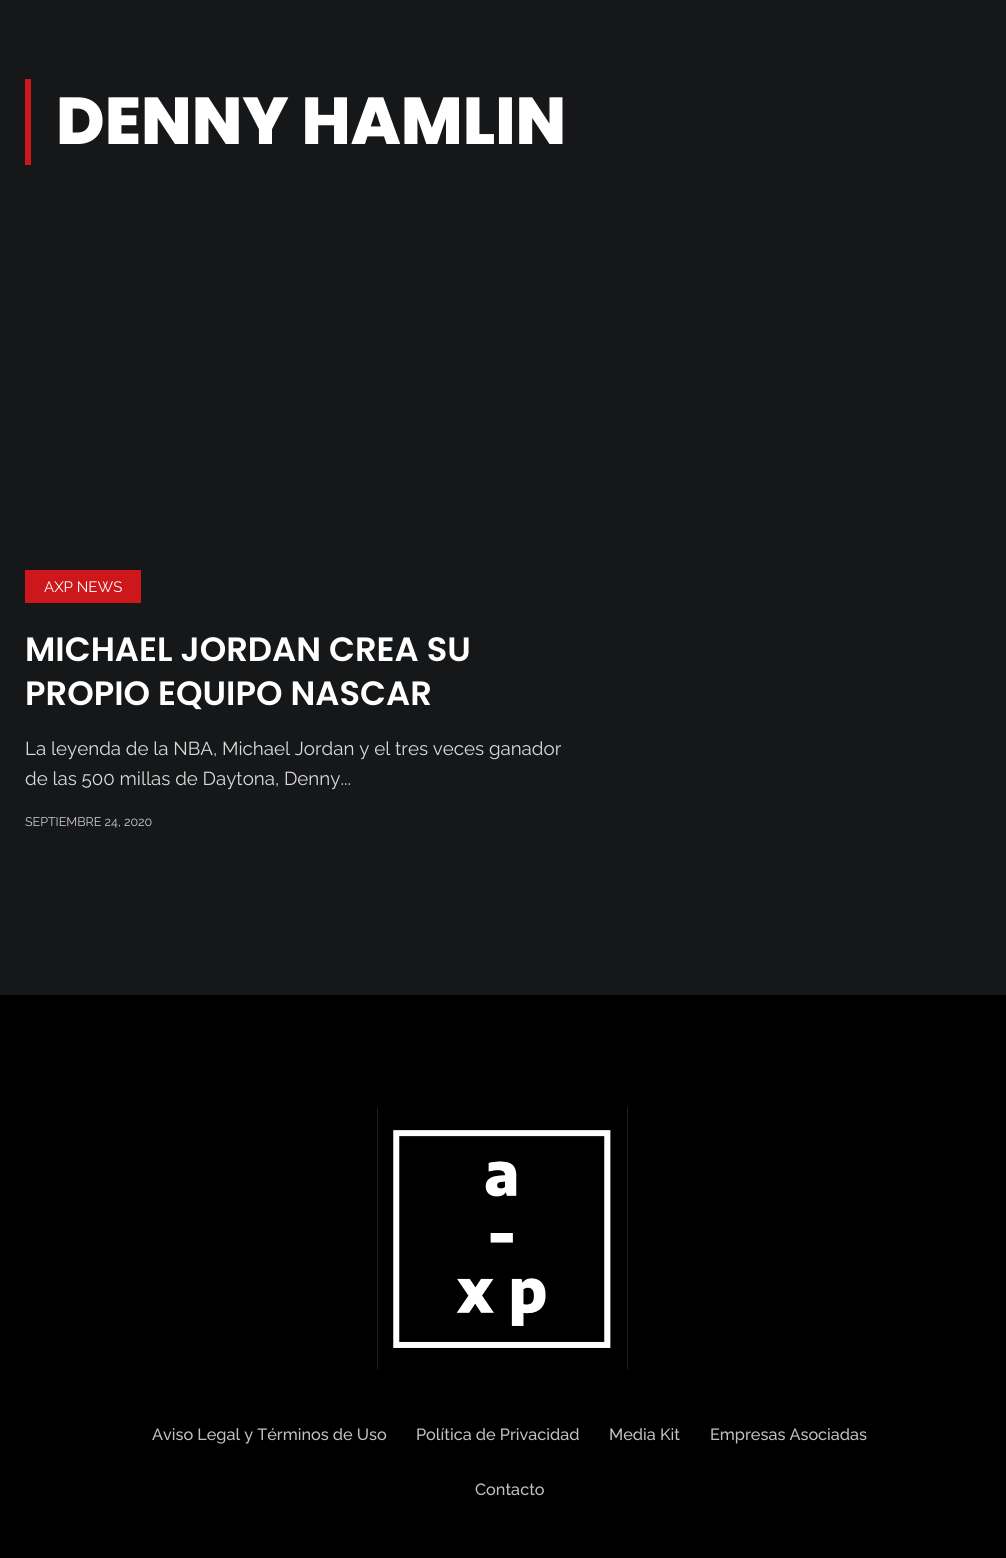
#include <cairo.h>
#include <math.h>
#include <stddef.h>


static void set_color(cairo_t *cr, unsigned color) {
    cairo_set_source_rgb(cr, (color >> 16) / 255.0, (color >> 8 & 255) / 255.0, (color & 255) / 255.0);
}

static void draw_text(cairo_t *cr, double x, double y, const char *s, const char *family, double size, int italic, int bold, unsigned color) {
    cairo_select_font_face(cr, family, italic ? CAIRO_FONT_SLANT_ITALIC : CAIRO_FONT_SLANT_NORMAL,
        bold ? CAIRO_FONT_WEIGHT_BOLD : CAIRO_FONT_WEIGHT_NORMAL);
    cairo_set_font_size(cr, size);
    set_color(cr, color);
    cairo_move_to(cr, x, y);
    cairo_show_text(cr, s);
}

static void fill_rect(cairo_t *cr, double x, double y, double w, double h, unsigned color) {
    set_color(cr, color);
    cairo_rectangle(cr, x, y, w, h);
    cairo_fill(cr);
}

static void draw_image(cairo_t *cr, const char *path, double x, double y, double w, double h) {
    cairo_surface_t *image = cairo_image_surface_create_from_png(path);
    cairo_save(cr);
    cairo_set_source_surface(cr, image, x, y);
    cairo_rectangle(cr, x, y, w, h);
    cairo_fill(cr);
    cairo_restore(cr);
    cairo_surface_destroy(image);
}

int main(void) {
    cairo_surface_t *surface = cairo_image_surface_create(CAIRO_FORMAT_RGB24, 1006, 1558);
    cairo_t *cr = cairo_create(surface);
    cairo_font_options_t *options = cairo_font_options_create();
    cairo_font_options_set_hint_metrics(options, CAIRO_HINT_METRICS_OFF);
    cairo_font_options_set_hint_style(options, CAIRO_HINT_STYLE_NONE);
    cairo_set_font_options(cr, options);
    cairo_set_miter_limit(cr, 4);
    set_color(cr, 0x161719);
    cairo_paint(cr);
    fill_rect(cr, 25, 79, 6, 86, 0xCD171A);
    draw_text(cr, 56, 144, "DENNY HAMLIN", "Poppins ExtraBold", 66.25, 0, 0, 0xFFFFFF);
    fill_rect(cr, 25, 570, 116, 33, 0xCD171A);
    draw_text(cr, 44, 592, "AXP NEWS", "Raleway", 15, 0, 0, 0xFFFFFF);
    draw_text(cr, 25, 661, "MICHAEL JORDAN CREA SU", "Poppins SemiBold", 33.75, 0, 0, 0xFFFFFF);
    draw_text(cr, 25, 705, "PROPIO EQUIPO NASCAR", "Poppins SemiBold", 33.75, 0, 0, 0xFFFFFF);
    draw_text(cr, 25, 755, "La leyenda de la NBA, Michael Jordan y el tres veces ganador", "Raleway", 18.75, 0, 0, 0xDBDBDB);
    draw_text(cr, 25, 785, "de las 500 millas de Daytona, Denny...", "Raleway", 18.75, 0, 0, 0xDBDBDB);
    draw_text(cr, 25, 826, "SEPTIEMBRE 24, 2020", "Raleway", 12.5, 0, 0, 0xCCCCCC);
    fill_rect(cr, 0, 995, 1006, 563, 0x000000);
    draw_image(cr, "assets/img1.png", 377, 1107, 251, 263);
    draw_text(cr, 152, 1440, "Aviso Legal y Términos de Uso", "Raleway Medium", 16.25, 0, 0, 0xC1C1C1);
    draw_text(cr, 416, 1440, "Política de Privacidad", "Raleway Medium", 16.25, 0, 0, 0xC1C1C1);
    draw_text(cr, 609, 1440, "Media Kit", "Raleway Medium", 16.25, 0, 0, 0xC1C1C1);
    draw_text(cr, 710, 1440, "Empresas Asociadas", "Raleway Medium", 16.25, 0, 0, 0xC1C1C1);
    draw_text(cr, 475, 1495, "Contacto", "Raleway Medium", 16.25, 0, 0, 0xC1C1C1);
    cairo_surface_write_to_png(surface, "output.png");
    cairo_font_options_destroy(options);
    cairo_destroy(cr);
    cairo_surface_destroy(surface);
    return 0;
}
